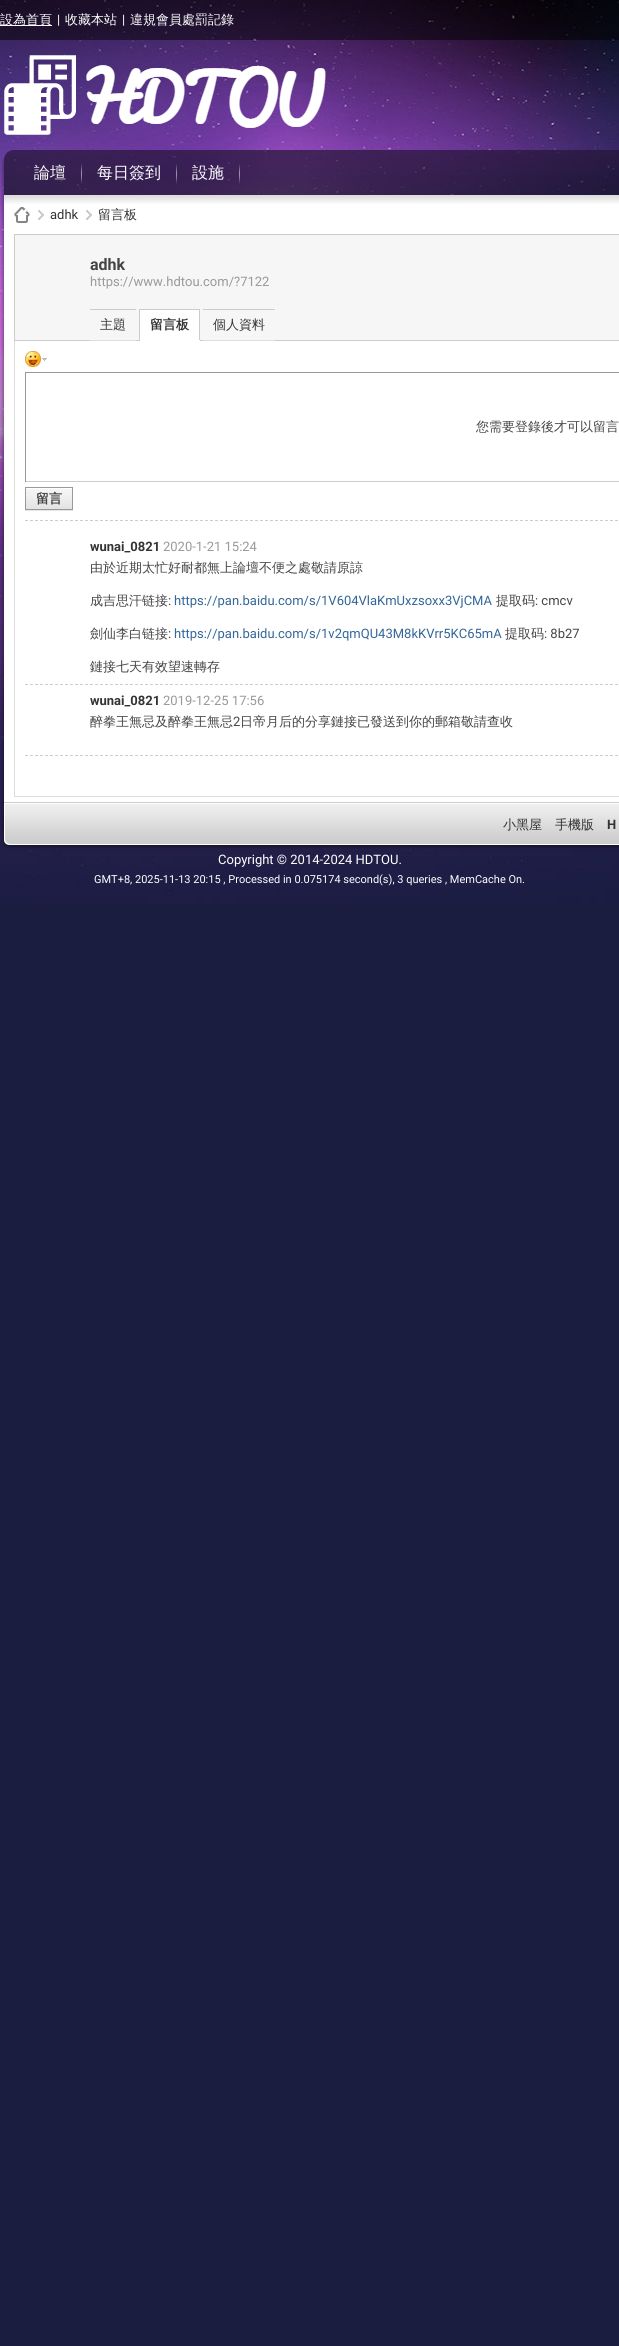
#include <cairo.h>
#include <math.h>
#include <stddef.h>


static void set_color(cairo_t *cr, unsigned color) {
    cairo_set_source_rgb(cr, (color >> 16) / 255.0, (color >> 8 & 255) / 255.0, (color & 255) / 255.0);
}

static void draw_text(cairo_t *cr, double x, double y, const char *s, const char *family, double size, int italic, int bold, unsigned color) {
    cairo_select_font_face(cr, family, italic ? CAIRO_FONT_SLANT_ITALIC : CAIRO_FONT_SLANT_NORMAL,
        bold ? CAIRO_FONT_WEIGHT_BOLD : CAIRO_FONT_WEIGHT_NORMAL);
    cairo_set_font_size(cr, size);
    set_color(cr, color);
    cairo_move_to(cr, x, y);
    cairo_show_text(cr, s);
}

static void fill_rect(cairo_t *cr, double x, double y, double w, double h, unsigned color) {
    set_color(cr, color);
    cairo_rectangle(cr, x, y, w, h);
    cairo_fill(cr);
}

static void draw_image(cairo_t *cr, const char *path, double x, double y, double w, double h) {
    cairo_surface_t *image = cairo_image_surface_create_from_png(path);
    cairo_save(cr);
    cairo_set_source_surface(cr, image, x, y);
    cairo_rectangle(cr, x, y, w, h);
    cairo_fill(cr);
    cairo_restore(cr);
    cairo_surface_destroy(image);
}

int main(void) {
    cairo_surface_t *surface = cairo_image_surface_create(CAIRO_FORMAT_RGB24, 619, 2346);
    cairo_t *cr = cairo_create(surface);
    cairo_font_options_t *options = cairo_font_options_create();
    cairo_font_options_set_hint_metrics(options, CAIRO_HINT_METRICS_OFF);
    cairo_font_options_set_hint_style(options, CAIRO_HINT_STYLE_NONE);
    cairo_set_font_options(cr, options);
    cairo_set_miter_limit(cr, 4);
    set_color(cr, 0x1A1D40);
    cairo_paint(cr);
    draw_image(cr, "assets/img1.png", 0, 0, 619, 904);
    cairo_set_source_rgba(cr, 0, 0, 0, 0.5);
    cairo_rectangle(cr, 0, 0, 619, 40);
    cairo_fill(cr);
    fill_rect(cr, 0, 25, 52, 1, 0xFFFFFF);
    draw_text(cr, 0, 24, "設為首頁", "WenQuanYi Zen Hei Medium", 13, 0, 0, 0xFFFFFF);
    draw_text(cr, 57, 24, "|", "Roboto", 13, 0, 0, 0xFFFFFF);
    draw_text(cr, 65, 24, "收藏本站", "WenQuanYi Zen Hei Medium", 13, 0, 0, 0xFFFFFF);
    draw_text(cr, 122, 24, "|", "Roboto", 13, 0, 0, 0xFFFFFF);
    draw_text(cr, 130, 24, "違規會員處罰記錄", "WenQuanYi Zen Hei Medium", 13, 0, 0, 0xFFFFFF);
    draw_image(cr, "assets/img2.png", 4, 55, 322, 80);
    draw_image(cr, "assets/img3.png", 1, 150, 13, 45);
    draw_image(cr, "assets/img4.png", 14, 150, 605, 45);
    draw_image(cr, "assets/img5.png", 81, 162, 1, 23);
    draw_text(cr, 34, 178, "論壇", "WenQuanYi Zen Hei Medium", 16, 0, 0, 0xFFFFFF);
    draw_image(cr, "assets/img6.png", 176, 162, 1, 23);
    draw_text(cr, 97, 178, "每日簽到", "WenQuanYi Zen Hei Medium", 16, 0, 0, 0xFFFFFF);
    draw_image(cr, "assets/img7.png", 239, 162, 1, 23);
    draw_text(cr, 192, 178, "設施", "WenQuanYi Zen Hei Medium", 16, 0, 0, 0xFFFFFF);
    draw_image(cr, "assets/img8.png", 1, 195, 3, 607);
    fill_rect(cr, 4, 204, 615, 598, 0xFFFFFF);
    draw_image(cr, "assets/img9.png", 4, 195, 615, 9);
    draw_image(cr, "assets/img10.png", 14, 207, 16, 16);
    draw_image(cr, "assets/img11.png", 38, 210, 6, 10);
    draw_text(cr, 50, 219, "adhk", "Roboto", 13, 0, 0, 0x333333);
    draw_image(cr, "assets/img11.png", 86, 210, 6, 10);
    draw_text(cr, 98, 219, "留言板", "WenQuanYi Zen Hei Medium", 13, 0, 0, 0x333333);
    fill_rect(cr, 15, 235, 604, 105, 0xF6F6F6);
    fill_rect(cr, 14, 234, 605, 1, 0xCCCCCC);
    fill_rect(cr, 14, 234, 1, 107, 0xCCCCCC);
    draw_text(cr, 90, 270, "adhk", "Roboto", 16, 0, 1, 0x444444);
    draw_text(cr, 90, 286, "https://www.hdtou.com/?7122", "Roboto", 13, 0, 0, 0x999999);
    fill_rect(cr, 15, 340, 604, 1, 0xCDCDCD);
    fill_rect(cr, 90, 309, 46, 1, 0xCCCCCC);
    fill_rect(cr, 90, 340, 46, 1, 0xDDDDDD);
    draw_text(cr, 100, 329, "主題", "WenQuanYi Zen Hei Medium", 13, 0, 0, 0x333333);
    fill_rect(cr, 140, 310, 59, 30, 0xFFFFFF);
    fill_rect(cr, 139, 309, 61, 1, 0xCCCCCC);
    fill_rect(cr, 199, 309, 1, 32, 0xCCCCCC);
    fill_rect(cr, 139, 340, 61, 1, 0xFFFFFF);
    fill_rect(cr, 139, 309, 1, 32, 0xCCCCCC);
    draw_text(cr, 150, 329, "留言板", "WenQuanYi Zen Hei", 13, 0, 1, 0x333333);
    fill_rect(cr, 203, 309, 72, 1, 0xCCCCCC);
    fill_rect(cr, 203, 340, 72, 1, 0xDDDDDD);
    draw_text(cr, 213, 329, "個人資料", "WenQuanYi Zen Hei Medium", 13, 0, 0, 0x333333);
    fill_rect(cr, 14, 796, 605, 1, 0xDDDDDD);
    fill_rect(cr, 14, 341, 1, 456, 0xDDDDDD);
    draw_image(cr, "assets/img12.png", 25, 351, 22, 16);
    fill_rect(cr, 25, 372, 594, 1, 0x999999);
    fill_rect(cr, 25, 481, 594, 1, 0xCCCCCC);
    fill_rect(cr, 25, 372, 1, 110, 0x999999);
    draw_text(cr, 476, 431, "您需要登錄後才可以留言", "WenQuanYi Zen Hei Medium", 13, 0, 0, 0x444444);
    fill_rect(cr, 25, 510, 48, 1, 0xE5E5E5);
    draw_image(cr, "assets/img13.png", 26, 488, 46, 21);
    cairo_rectangle(cr, 25.5, 487.5, 47, 22);
    set_color(cr, 0x999999);
    cairo_set_line_width(cr, 1);
    cairo_stroke(cr);
    draw_text(cr, 36, 503, "留言", "WenQuanYi Zen Hei", 13, 0, 1, 0x444444);
    cairo_new_path(cr);
    cairo_move_to(cr, 25, 520.5);
    cairo_line_to(cr, 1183, 520.5);
    set_color(cr, 0xCDCDCD);
    cairo_set_dash(cr, (double[]){3, 2}, 2, 0);
    cairo_stroke(cr);
    cairo_new_path(cr);
    cairo_move_to(cr, 25, 684.5);
    cairo_line_to(cr, 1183, 684.5);
    cairo_stroke(cr);
    draw_text(cr, 90, 551, "wunai_0821", "Roboto", 13, 0, 1, 0x333333);
    draw_text(cr, 163, 551, "2020-1-21 15:24", "Roboto", 13, 0, 0, 0x999999);
    draw_text(cr, 90, 572, "由於近期太忙好耐都無上論壇不便之處敬請原諒", "WenQuanYi Zen Hei Medium", 13, 0, 0, 0x444444);
    draw_text(cr, 90, 605, "成吉思汗链接", "WenQuanYi Zen Hei Medium", 13, 0, 0, 0x444444);
    draw_text(cr, 168, 605, ":", "Roboto", 13, 0, 0, 0x444444);
    draw_text(cr, 174, 605, "https://pan.baidu.com/s/1V604VlaKmUxzsoxx3VjCMA", "Roboto", 13, 0, 0, 0x336699);
    draw_text(cr, 496, 605, "提取码", "WenQuanYi Zen Hei Medium", 13, 0, 0, 0x444444);
    draw_text(cr, 535, 605, ": cmcv", "Roboto", 13, 0, 0, 0x444444);
    draw_text(cr, 90, 638, "劍仙李白链接", "WenQuanYi Zen Hei Medium", 13, 0, 0, 0x444444);
    draw_text(cr, 168, 638, ":", "Roboto", 13, 0, 0, 0x444444);
    draw_text(cr, 174, 638, "https://pan.baidu.com/s/1v2qmQU43M8kKVrr5KC65mA", "Roboto", 13, 0, 0, 0x336699);
    draw_text(cr, 505, 638, "提取码", "WenQuanYi Zen Hei Medium", 13, 0, 0, 0x444444);
    draw_text(cr, 544, 638, ": 8b27", "Roboto", 13, 0, 0, 0x444444);
    draw_text(cr, 90, 671, "鏈接七天有效望速轉存", "WenQuanYi Zen Hei Medium", 13, 0, 0, 0x444444);
    cairo_new_path(cr);
    cairo_move_to(cr, 25, 755.5);
    cairo_line_to(cr, 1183, 755.5);
    set_color(cr, 0xCDCDCD);
    cairo_stroke(cr);
    draw_text(cr, 90, 705, "wunai_0821", "Roboto", 13, 0, 1, 0x333333);
    draw_text(cr, 163, 705, "2019-12-25 17:56", "Roboto", 13, 0, 0, 0x999999);
    draw_text(cr, 90, 726, "醉拳王無忌及醉拳王無忌", "WenQuanYi Zen Hei Medium", 13, 0, 0, 0x444444);
    draw_text(cr, 233, 726, "2", "Roboto", 13, 0, 0, 0x444444);
    draw_text(cr, 240, 726, "日帝月后的分享鏈接已發送到你的郵箱敬請查收", "WenQuanYi Zen Hei Medium", 13, 0, 0, 0x444444);
    draw_image(cr, "assets/img14.png", 1, 802, 14, 47);
    draw_image(cr, "assets/img15.png", 15, 802, 604, 47);
    draw_text(cr, 503, 829, "小黑屋", "WenQuanYi Zen Hei Medium", 13, 0, 0, 0x333333);
    draw_text(cr, 555, 829, "手機版", "WenQuanYi Zen Hei Medium", 13, 0, 0, 0x333333);
    draw_text(cr, 607, 829, "H", "Roboto", 13, 0, 1, 0x333333);
    draw_text(cr, 218, 864, "Copyright © 2014-2024 HDTOU.", "Roboto", 13, 0, 0, 0xFFFFFF);
    draw_text(cr, 94, 883, "GMT+8, 2025-11-13 20:15 , Processed in 0.075174 second(s), 3 queries , MemCache On.", "Roboto", 11, 0, 0, 0xFFFFFF);
    cairo_surface_write_to_png(surface, "output.png");
    cairo_font_options_destroy(options);
    cairo_destroy(cr);
    cairo_surface_destroy(surface);
    return 0;
}
